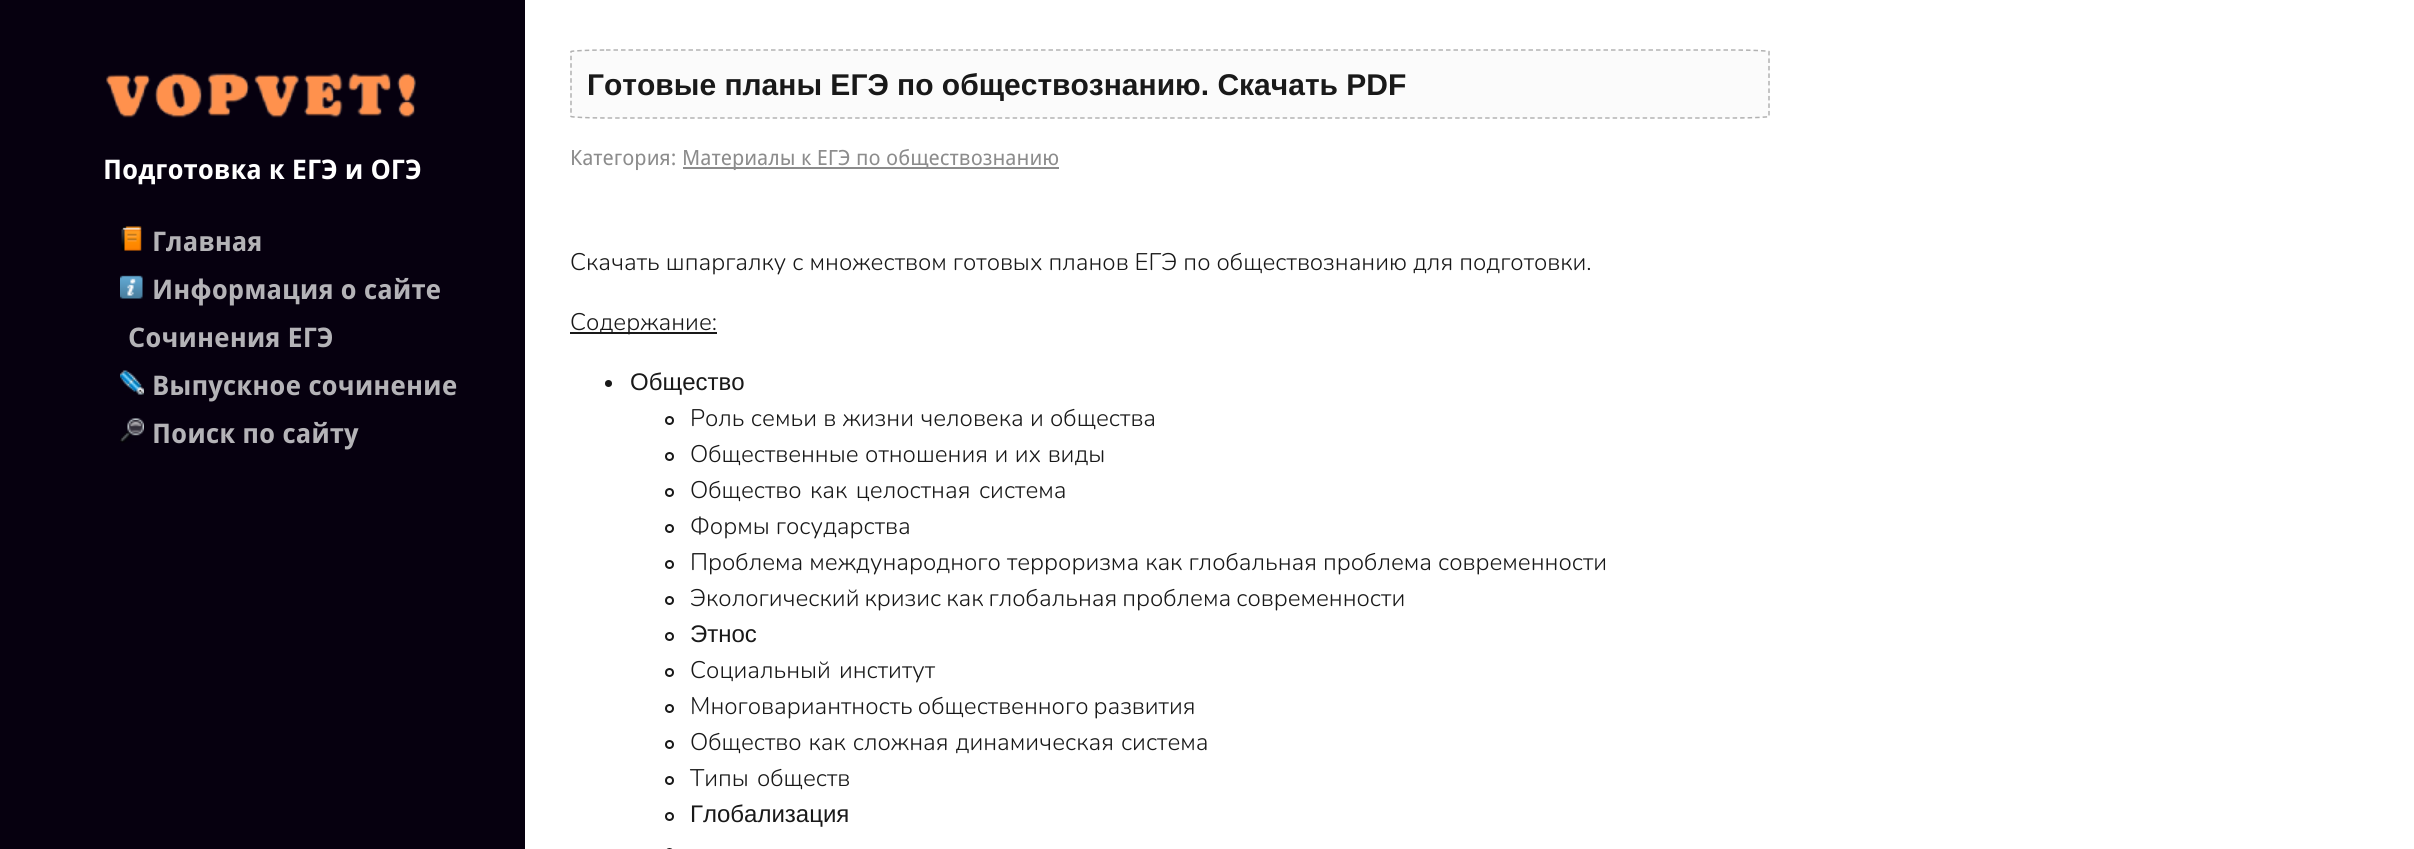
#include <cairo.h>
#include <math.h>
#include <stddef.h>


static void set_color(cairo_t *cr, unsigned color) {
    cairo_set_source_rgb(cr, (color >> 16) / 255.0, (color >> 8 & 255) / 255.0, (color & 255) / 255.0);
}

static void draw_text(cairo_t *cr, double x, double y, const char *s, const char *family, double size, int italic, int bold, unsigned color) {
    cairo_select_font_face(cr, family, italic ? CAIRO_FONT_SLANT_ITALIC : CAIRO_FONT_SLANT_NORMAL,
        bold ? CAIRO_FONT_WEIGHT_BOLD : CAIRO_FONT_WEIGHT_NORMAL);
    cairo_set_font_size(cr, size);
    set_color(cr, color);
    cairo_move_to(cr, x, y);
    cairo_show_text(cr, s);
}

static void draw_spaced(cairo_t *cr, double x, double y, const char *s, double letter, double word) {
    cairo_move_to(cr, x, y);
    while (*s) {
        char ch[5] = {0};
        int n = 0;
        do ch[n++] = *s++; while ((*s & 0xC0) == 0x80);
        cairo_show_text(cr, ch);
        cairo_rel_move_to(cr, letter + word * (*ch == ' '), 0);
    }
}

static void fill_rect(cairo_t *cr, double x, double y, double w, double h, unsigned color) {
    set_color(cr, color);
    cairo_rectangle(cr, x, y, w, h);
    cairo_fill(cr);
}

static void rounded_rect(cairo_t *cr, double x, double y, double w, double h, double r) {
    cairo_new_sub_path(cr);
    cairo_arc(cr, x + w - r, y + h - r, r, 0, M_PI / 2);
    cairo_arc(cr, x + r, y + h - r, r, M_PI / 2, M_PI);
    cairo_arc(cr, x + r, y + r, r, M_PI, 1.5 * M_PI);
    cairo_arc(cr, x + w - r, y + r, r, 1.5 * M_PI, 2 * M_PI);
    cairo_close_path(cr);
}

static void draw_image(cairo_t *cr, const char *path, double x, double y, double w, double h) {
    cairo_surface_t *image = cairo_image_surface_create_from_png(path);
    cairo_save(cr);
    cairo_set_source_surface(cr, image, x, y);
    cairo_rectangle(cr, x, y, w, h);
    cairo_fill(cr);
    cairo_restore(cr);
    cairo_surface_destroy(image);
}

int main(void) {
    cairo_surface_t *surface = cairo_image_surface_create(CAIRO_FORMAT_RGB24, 2414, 849);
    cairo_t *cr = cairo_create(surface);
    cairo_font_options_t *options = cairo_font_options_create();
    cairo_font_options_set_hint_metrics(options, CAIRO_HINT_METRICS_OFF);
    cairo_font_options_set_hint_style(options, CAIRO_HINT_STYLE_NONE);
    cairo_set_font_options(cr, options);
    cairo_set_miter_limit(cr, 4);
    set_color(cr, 0xFFFFFF);
    cairo_paint(cr);
    fill_rect(cr, 0, 0, 525, 849, 0x06000F);
    draw_image(cr, "assets/img1.png", 106, 73, 310, 45);
    draw_text(cr, 103, 179, "Подготовка к ЕГЭ и ОГЭ", "Droid Sans", 27, 0, 1, 0xFFFFFF);
    draw_image(cr, "assets/img2.png", 121, 226, 21, 25);
    draw_text(cr, 152, 251, "Главная", "Droid Sans", 27, 0, 1, 0xB4B3B7);
    draw_image(cr, "assets/img3.png", 120, 275, 23, 24);
    draw_text(cr, 152, 299, "Информация о сайте", "Droid Sans", 27, 0, 1, 0xB4B3B7);
    draw_text(cr, 128, 347, "Сочинения ЕГЭ", "Droid Sans", 27, 0, 1, 0xB4B3B7);
    draw_image(cr, "assets/img4.png", 120, 370, 24, 25);
    draw_text(cr, 152, 395, "Выпускное сочинение", "Droid Sans", 27, 0, 1, 0xB4B3B7);
    draw_image(cr, "assets/img5.png", 120, 418, 24, 25);
    draw_text(cr, 152, 443, "Поиск по сайту", "Droid Sans", 27, 0, 1, 0xB4B3B7);
    set_color(cr, 0xFBFBFB);
    cairo_new_path(cr);
    cairo_move_to(cr, 606, 50);
    cairo_line_to(cr, 1734, 50);
    cairo_curve_to(cr, 1754, 50, 1770, 50, 1770, 52);
    cairo_line_to(cr, 1770, 116);
    cairo_curve_to(cr, 1770, 118, 1754, 118, 1734, 118);
    cairo_line_to(cr, 606, 118);
    cairo_curve_to(cr, 586, 118, 570, 118, 570, 116);
    cairo_line_to(cr, 570, 52);
    cairo_curve_to(cr, 570, 50, 586, 50, 606, 50);
    cairo_close_path(cr);
    cairo_fill(cr);
    cairo_new_path(cr);
    cairo_move_to(cr, 606, 50);
    cairo_line_to(cr, 1734, 50);
    cairo_curve_to(cr, 1753.5, 50, 1769, 51, 1769, 51.5);
    cairo_line_to(cr, 1769, 116.5);
    cairo_curve_to(cr, 1769, 117, 1753.5, 118, 1734, 118);
    cairo_line_to(cr, 606, 118);
    cairo_curve_to(cr, 586.5, 118, 571, 117, 571, 116.5);
    cairo_line_to(cr, 571, 51.5);
    cairo_curve_to(cr, 571, 51, 586.5, 50, 606, 50);
    cairo_close_path(cr);
    set_color(cr, 0xB1B1B1);
    cairo_set_line_width(cr, 1.5);
    cairo_set_dash(cr, (double[]){4.5, 3}, 2, 0);
    cairo_stroke(cr);
    draw_text(cr, 587, 95, "Готовые планы ЕГЭ по обществознанию. Скачать PDF", "Liberation Sans", 30, 0, 1, 0x191919);
    draw_text(cr, 570, 165, "Категория:", "Droid Sans", 21, 0, 0, 0x8C8C8C);
    fill_rect(cr, 683, 167, 376, 2, 0x8C8C8C);
    draw_text(cr, 682, 165, "Материалы к ЕГЭ по обществознанию", "Droid Sans", 21, 0, 0, 0x8C8C8C);
    draw_text(cr, 570, 270, "Скачать шпаргалку с множеством готовых планов ЕГЭ по обществознанию для подготовки.", "Nunito Light", 24, 0, 0, 0x191919);
    fill_rect(cr, 570, 332, 147, 2, 0x191919);
    draw_text(cr, 570, 330, "Содержание:", "Nunito Light", 24, 0, 0, 0x191919);
    cairo_new_path(cr);
    cairo_arc(cr, 608.5, 383.5, 3.5, 0, 2 * M_PI);
    cairo_fill(cr);
    draw_text(cr, 630, 390, "Общество", "Liberation Sans", 24, 0, 0, 0x191919);
    cairo_new_path(cr);
    cairo_arc(cr, 669.5, 420.5, 3.5, 0, 2 * M_PI);
    cairo_set_line_width(cr, 2);
    cairo_set_dash(cr, NULL, 0, 0);
    cairo_stroke(cr);
    cairo_select_font_face(cr, "Nunito Light", CAIRO_FONT_SLANT_NORMAL, CAIRO_FONT_WEIGHT_NORMAL);
    draw_spaced(cr, 690, 426, "Роль семьи в жизни человека и общества", 0, 0.25);
    cairo_new_path(cr);
    cairo_arc(cr, 669.5, 456.5, 3.5, 0, 2 * M_PI);
    cairo_stroke(cr);
    draw_spaced(cr, 690, 462, "Общественные отношения и их виды", 0, 0.5);
    cairo_new_path(cr);
    cairo_arc(cr, 669.5, 492.5, 3.5, 0, 2 * M_PI);
    cairo_stroke(cr);
    draw_spaced(cr, 690, 498, "Общество как целостная система", 0, 2.5);
    cairo_new_path(cr);
    cairo_arc(cr, 669.5, 528.5, 3.5, 0, 2 * M_PI);
    cairo_stroke(cr);
    draw_text(cr, 690, 534, "Формы государства", "Nunito Light", 24, 0, 0, 0x191919);
    cairo_new_path(cr);
    cairo_arc(cr, 669.5, 564.5, 3.5, 0, 2 * M_PI);
    cairo_stroke(cr);
    draw_text(cr, 690, 570, "Проблема международного терроризма как глобальная проблема современности", "Nunito Light", 24, 0, 0, 0x191919);
    cairo_new_path(cr);
    cairo_arc(cr, 669.5, 600.5, 3.5, 0, 2 * M_PI);
    cairo_stroke(cr);
    draw_spaced(cr, 690, 606, "Экологический кризис как глобальная проблема современности", 0, -1);
    cairo_new_path(cr);
    cairo_arc(cr, 669.5, 636.5, 3.5, 0, 2 * M_PI);
    cairo_stroke(cr);
    draw_text(cr, 690, 642, "Этнос", "Liberation Sans", 24, 0, 0, 0x191919);
    cairo_new_path(cr);
    cairo_arc(cr, 669.5, 672.5, 3.5, 0, 2 * M_PI);
    cairo_stroke(cr);
    cairo_select_font_face(cr, "Nunito Light", CAIRO_FONT_SLANT_NORMAL, CAIRO_FONT_WEIGHT_NORMAL);
    draw_spaced(cr, 690, 678, "Социальный институт", 0, 2);
    cairo_new_path(cr);
    cairo_arc(cr, 669.5, 708.5, 3.5, 0, 2 * M_PI);
    cairo_stroke(cr);
    draw_spaced(cr, 690, 714, "Многовариантность общественного развития", 0, -1);
    cairo_new_path(cr);
    cairo_arc(cr, 669.5, 744.5, 3.5, 0, 2 * M_PI);
    cairo_stroke(cr);
    draw_spaced(cr, 690, 750, "Общество как сложная динамическая система", 0, 1);
    cairo_new_path(cr);
    cairo_arc(cr, 669.5, 780.5, 3.5, 0, 2 * M_PI);
    cairo_stroke(cr);
    draw_spaced(cr, 690, 786, "Типы обществ", 0, 2);
    cairo_new_path(cr);
    cairo_arc(cr, 669.5, 816.5, 3.5, 0, 2 * M_PI);
    cairo_stroke(cr);
    draw_text(cr, 690, 822, "Глобализация", "Liberation Sans", 24, 0, 0, 0x191919);
    rounded_rect(cr, 666, 849, 7, 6, 3.5);
    cairo_stroke(cr);
    cairo_surface_write_to_png(surface, "output.png");
    cairo_font_options_destroy(options);
    cairo_destroy(cr);
    cairo_surface_destroy(surface);
    return 0;
}
